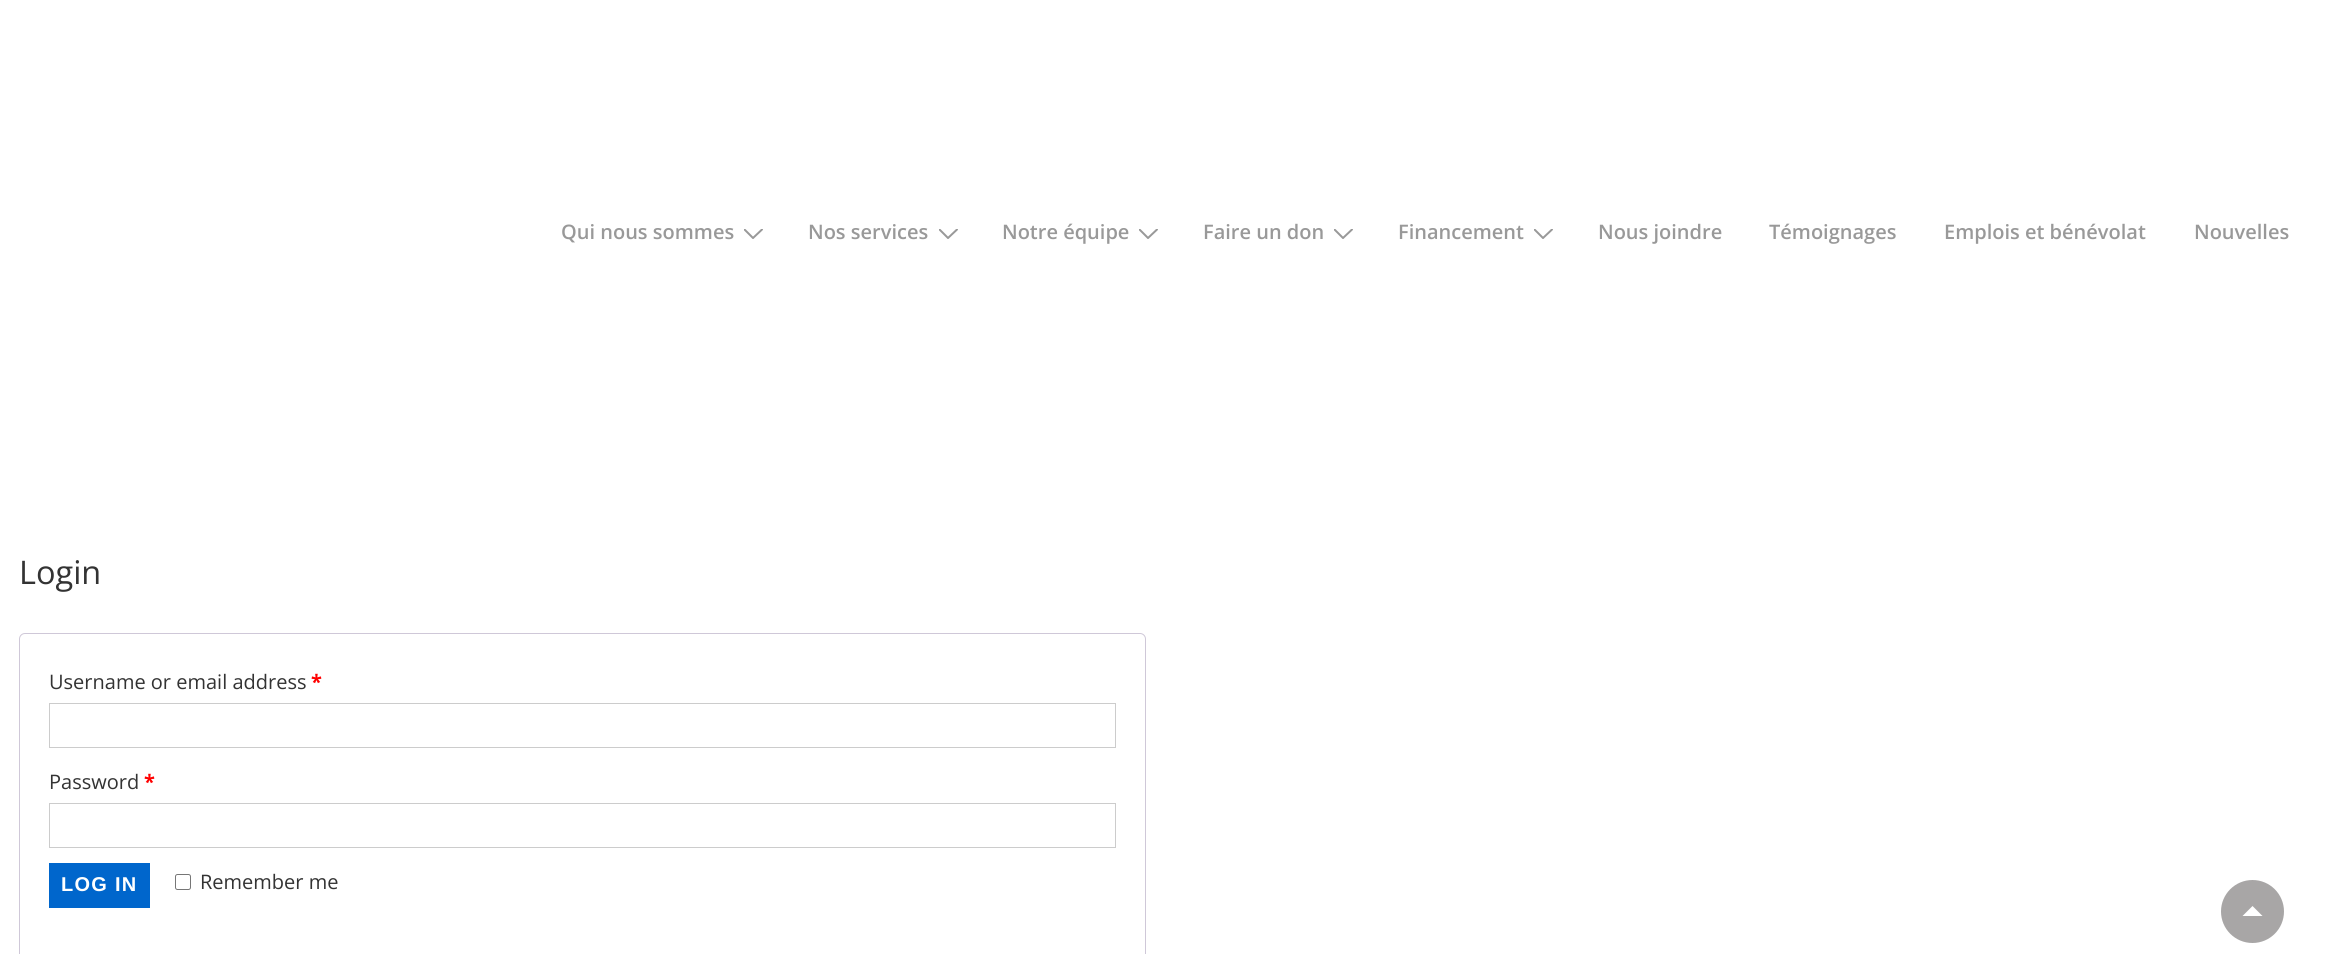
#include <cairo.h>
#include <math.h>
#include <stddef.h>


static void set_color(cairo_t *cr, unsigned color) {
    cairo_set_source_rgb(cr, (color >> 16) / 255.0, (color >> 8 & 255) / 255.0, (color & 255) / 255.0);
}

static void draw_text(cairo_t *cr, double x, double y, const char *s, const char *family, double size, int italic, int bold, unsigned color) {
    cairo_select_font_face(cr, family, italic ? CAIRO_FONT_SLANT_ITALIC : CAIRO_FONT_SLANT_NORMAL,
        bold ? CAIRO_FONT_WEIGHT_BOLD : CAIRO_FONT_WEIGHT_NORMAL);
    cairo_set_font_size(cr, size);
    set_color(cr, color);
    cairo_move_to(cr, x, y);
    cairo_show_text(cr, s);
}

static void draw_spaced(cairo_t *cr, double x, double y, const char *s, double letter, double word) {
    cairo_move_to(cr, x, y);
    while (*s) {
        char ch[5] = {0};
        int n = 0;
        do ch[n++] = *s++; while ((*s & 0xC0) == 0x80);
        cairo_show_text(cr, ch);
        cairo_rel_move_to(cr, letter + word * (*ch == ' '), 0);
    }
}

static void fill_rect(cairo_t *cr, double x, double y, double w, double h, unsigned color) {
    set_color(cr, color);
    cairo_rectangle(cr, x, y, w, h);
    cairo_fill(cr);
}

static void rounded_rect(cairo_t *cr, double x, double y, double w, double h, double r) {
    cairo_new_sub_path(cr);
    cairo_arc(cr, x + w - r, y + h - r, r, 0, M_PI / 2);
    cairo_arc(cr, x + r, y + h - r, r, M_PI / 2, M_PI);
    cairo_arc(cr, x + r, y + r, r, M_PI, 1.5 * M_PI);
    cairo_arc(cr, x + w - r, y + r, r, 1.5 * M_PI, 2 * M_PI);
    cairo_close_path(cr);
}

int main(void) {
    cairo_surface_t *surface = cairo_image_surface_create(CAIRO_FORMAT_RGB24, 2329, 954);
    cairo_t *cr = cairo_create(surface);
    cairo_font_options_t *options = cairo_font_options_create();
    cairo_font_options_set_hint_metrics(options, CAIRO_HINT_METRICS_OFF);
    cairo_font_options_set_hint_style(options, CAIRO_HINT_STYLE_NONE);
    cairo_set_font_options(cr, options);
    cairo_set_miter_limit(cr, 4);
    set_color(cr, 0xFFFFFF);
    cairo_paint(cr);
    draw_text(cr, 561, 239, "Qui nous sommes", "Open Sans SemiBold", 20, 0, 0, 0x999999);
    cairo_save(cr);
    cairo_rectangle(cr, 744, 229, 19, 10);
    cairo_clip(cr);
    cairo_new_path(cr);
    cairo_move_to(cr, 744.5, 229.5);
    cairo_line_to(cr, 753, 238);
    cairo_line_to(cr, 762, 229.5);
    cairo_set_line_cap(cr, CAIRO_LINE_CAP_ROUND);
    cairo_stroke(cr);
    cairo_restore(cr);
    draw_text(cr, 808, 239, "Nos services", "Open Sans SemiBold", 20, 0, 0, 0x999999);
    cairo_save(cr);
    cairo_rectangle(cr, 939, 229, 19, 10);
    cairo_clip(cr);
    cairo_new_path(cr);
    cairo_move_to(cr, 939.5, 229.5);
    cairo_line_to(cr, 948, 238);
    cairo_line_to(cr, 957, 229.5);
    cairo_set_line_cap(cr, CAIRO_LINE_CAP_ROUND);
    cairo_stroke(cr);
    cairo_restore(cr);
    draw_text(cr, 1002, 239, "Notre équipe", "Open Sans SemiBold", 20, 0, 0, 0x999999);
    cairo_save(cr);
    cairo_rectangle(cr, 1139, 229, 19, 10);
    cairo_clip(cr);
    cairo_new_path(cr);
    cairo_move_to(cr, 1139.5, 229.5);
    cairo_line_to(cr, 1148, 238);
    cairo_line_to(cr, 1157, 229.5);
    cairo_set_line_cap(cr, CAIRO_LINE_CAP_ROUND);
    cairo_stroke(cr);
    cairo_restore(cr);
    draw_text(cr, 1203, 239, "Faire un don", "Open Sans SemiBold", 20, 0, 0, 0x999999);
    cairo_save(cr);
    cairo_rectangle(cr, 1334, 229, 19, 10);
    cairo_clip(cr);
    cairo_new_path(cr);
    cairo_move_to(cr, 1334.5, 229.5);
    cairo_line_to(cr, 1343, 238);
    cairo_line_to(cr, 1352, 229.5);
    cairo_set_line_cap(cr, CAIRO_LINE_CAP_ROUND);
    cairo_stroke(cr);
    cairo_restore(cr);
    draw_text(cr, 1398, 239, "Financement", "Open Sans SemiBold", 20, 0, 0, 0x999999);
    cairo_save(cr);
    cairo_rectangle(cr, 1534, 229, 19, 10);
    cairo_clip(cr);
    cairo_new_path(cr);
    cairo_move_to(cr, 1534.5, 229.5);
    cairo_line_to(cr, 1543, 238);
    cairo_line_to(cr, 1552, 229.5);
    cairo_set_line_cap(cr, CAIRO_LINE_CAP_ROUND);
    cairo_stroke(cr);
    cairo_restore(cr);
    draw_text(cr, 1598, 239, "Nous joindre", "Open Sans SemiBold", 20, 0, 0, 0x999999);
    draw_text(cr, 1769, 239, "Témoignages", "Open Sans SemiBold", 20, 0, 0, 0x999999);
    draw_text(cr, 1944, 239, "Emplois et bénévolat", "Open Sans SemiBold", 20, 0, 0, 0x999999);
    draw_text(cr, 2194, 239, "Nouvelles", "Open Sans SemiBold", 20, 0, 0, 0x999999);
    draw_text(cr, 19, 584, "Login", "Open Sans", 32.5, 0, 0, 0x333333);
    rounded_rect(cr, 19.5, 633.5, 1126, 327, 5.5);
    set_color(cr, 0xCFC8D8);
    cairo_set_line_width(cr, 1);
    cairo_stroke(cr);
    draw_text(cr, 49, 689, "Username or email address", "Open Sans", 20, 0, 0, 0x333333);
    draw_text(cr, 311, 689, "*", "Open Sans", 20, 0, 1, 0xFF0000);
    cairo_rectangle(cr, 49.5, 703.5, 1066, 44);
    set_color(cr, 0xCCCCCC);
    cairo_stroke(cr);
    draw_text(cr, 49, 789, "Password", "Open Sans", 20, 0, 0, 0x333333);
    draw_text(cr, 144, 789, "*", "Open Sans", 20, 0, 1, 0xFF0000);
    cairo_rectangle(cr, 49.5, 803.5, 1066, 44);
    set_color(cr, 0xCCCCCC);
    cairo_stroke(cr);
    fill_rect(cr, 49, 863, 101, 45, 0x0066CC);
    cairo_select_font_face(cr, "Liberation Sans", CAIRO_FONT_SLANT_NORMAL, CAIRO_FONT_WEIGHT_BOLD);
    set_color(cr, 0xFFFFFF);
    draw_spaced(cr, 61, 891, "LOG IN", 1.25, 0);
    rounded_rect(cr, 175.5, 874.5, 15, 15, 2);
    set_color(cr, 0x767676);
    cairo_stroke(cr);
    draw_text(cr, 200, 889, "Remember me", "Open Sans", 20, 0, 0, 0x333333);
    set_color(cr, 0xA8A6A6);
    cairo_new_path(cr);
    cairo_arc(cr, 2252.5, 911.5, 31.5, 0, 2 * M_PI);
    cairo_fill(cr);
    set_color(cr, 0xFFFFFF);
    cairo_new_path(cr);
    cairo_move_to(cr, 2262.5, 916);
    cairo_line_to(cr, 2242.5, 916);
    cairo_line_to(cr, 2252.5, 906);
    cairo_close_path(cr);
    cairo_fill(cr);
    cairo_surface_write_to_png(surface, "output.png");
    cairo_font_options_destroy(options);
    cairo_destroy(cr);
    cairo_surface_destroy(surface);
    return 0;
}
